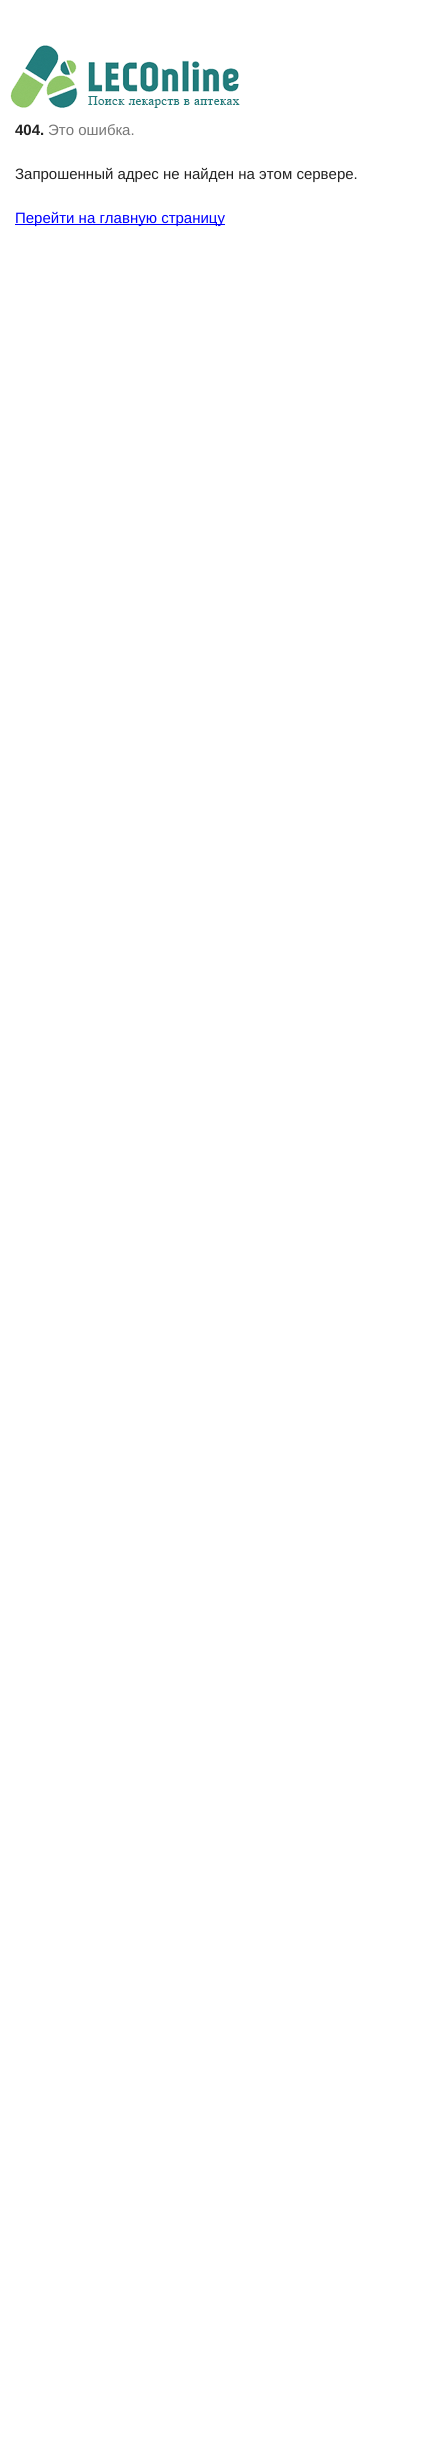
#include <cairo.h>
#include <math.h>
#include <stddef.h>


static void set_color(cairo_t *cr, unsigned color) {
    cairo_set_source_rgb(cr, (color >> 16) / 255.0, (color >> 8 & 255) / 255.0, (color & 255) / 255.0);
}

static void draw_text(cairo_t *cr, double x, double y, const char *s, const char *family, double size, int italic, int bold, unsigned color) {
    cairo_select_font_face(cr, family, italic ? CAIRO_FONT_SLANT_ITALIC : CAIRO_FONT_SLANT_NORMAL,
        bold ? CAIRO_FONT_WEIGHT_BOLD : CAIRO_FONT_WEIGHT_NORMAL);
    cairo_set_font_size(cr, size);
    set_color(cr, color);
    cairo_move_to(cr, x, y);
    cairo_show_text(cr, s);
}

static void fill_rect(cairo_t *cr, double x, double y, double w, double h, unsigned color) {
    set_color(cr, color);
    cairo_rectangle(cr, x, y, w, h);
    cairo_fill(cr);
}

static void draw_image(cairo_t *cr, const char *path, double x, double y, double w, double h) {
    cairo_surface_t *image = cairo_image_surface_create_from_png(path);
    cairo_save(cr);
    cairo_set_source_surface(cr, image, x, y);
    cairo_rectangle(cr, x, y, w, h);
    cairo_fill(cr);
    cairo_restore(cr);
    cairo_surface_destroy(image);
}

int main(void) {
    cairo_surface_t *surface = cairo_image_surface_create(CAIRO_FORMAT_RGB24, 438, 2437);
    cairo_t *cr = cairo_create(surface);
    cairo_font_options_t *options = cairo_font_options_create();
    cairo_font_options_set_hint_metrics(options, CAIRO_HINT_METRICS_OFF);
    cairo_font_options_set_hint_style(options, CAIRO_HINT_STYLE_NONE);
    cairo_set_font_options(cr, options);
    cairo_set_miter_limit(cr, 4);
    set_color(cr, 0xFFFFFF);
    cairo_paint(cr);
    draw_image(cr, "assets/img1.png", 10, 45, 230, 63);
    draw_text(cr, 15, 135, "404.", "Liberation Sans", 15, 0, 1, 0x222222);
    draw_text(cr, 48, 135, "Это ошибка.", "Liberation Sans", 15, 0, 0, 0x777777);
    draw_text(cr, 15, 179, "Запрошенный адрес не найден на этом сервере.", "Liberation Sans", 15, 0, 0, 0x222222);
    fill_rect(cr, 15, 224, 210, 1, 0x0000FF);
    draw_text(cr, 15, 223, "Перейти на главную страницу", "Liberation Sans", 15, 0, 0, 0x0000FF);
    cairo_surface_write_to_png(surface, "output.png");
    cairo_font_options_destroy(options);
    cairo_destroy(cr);
    cairo_surface_destroy(surface);
    return 0;
}
